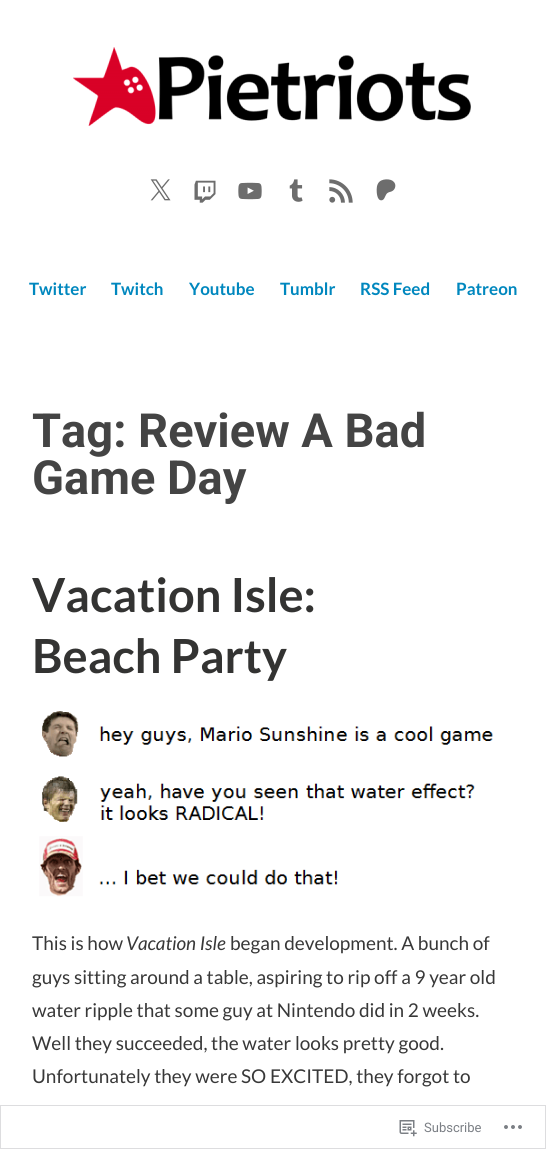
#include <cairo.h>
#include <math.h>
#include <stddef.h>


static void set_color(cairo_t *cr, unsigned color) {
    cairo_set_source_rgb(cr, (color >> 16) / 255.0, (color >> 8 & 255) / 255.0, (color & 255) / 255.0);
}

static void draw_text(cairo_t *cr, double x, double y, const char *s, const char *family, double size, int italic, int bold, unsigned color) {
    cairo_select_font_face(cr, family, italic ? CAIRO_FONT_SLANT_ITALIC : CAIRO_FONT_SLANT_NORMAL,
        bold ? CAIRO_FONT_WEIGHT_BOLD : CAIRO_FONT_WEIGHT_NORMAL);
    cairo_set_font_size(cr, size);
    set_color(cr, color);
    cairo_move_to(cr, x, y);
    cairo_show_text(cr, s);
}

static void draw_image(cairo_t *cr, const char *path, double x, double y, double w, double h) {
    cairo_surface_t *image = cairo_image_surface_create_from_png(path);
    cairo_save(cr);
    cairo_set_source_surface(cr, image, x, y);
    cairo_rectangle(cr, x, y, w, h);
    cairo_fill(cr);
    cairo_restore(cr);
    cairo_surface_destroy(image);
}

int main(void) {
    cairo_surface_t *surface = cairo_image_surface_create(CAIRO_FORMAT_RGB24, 546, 1149);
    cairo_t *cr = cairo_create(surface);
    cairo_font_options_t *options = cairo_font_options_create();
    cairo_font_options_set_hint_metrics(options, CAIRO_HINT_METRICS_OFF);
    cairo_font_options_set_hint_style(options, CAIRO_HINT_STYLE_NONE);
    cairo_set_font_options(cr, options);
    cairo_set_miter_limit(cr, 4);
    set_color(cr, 0xFFFFFF);
    cairo_paint(cr);
    draw_image(cr, "assets/img1.png", 73, 47, 398, 79);
    draw_image(cr, "assets/img2.png", 150, 179, 21, 22);
    draw_image(cr, "assets/img3.png", 194, 180, 22, 23);
    draw_image(cr, "assets/img4.png", 238, 182, 24, 18);
    draw_image(cr, "assets/img5.png", 289, 179, 14, 23);
    draw_image(cr, "assets/img6.png", 329, 179, 24, 24);
    draw_image(cr, "assets/img7.png", 376, 179, 20, 22);
    draw_text(cr, 29, 295, "Twitter", "Lato", 17, 0, 1, 0x0087BE);
    draw_text(cr, 111, 295, "Twitch", "Lato", 17, 0, 1, 0x0087BE);
    draw_text(cr, 189, 295, "Youtube", "Lato", 17, 0, 1, 0x0087BE);
    draw_text(cr, 280, 295, "Tumblr", "Lato", 17, 0, 1, 0x0087BE);
    draw_text(cr, 360, 295, "RSS Feed", "Lato", 17, 0, 1, 0x0087BE);
    draw_text(cr, 456, 295, "Patreon", "Lato", 17, 0, 1, 0x0087BE);
    draw_text(cr, 32, 447, "Tag: Review A Bad", "Roboto", 47, 0, 1, 0x444444);
    draw_text(cr, 32, 494, "Game Day", "Roboto", 47, 0, 1, 0x444444);
    draw_text(cr, 32, 612, "Vacation Isle:", "Lato", 47, 0, 1, 0x333332);
    draw_text(cr, 32, 673, "Beach Party", "Lato", 47, 0, 1, 0x333332);
    draw_image(cr, "assets/img8.png", 39, 711, 455, 186);
    draw_text(cr, 32, 950, "This is how", "Lato", 19, 0, 0, 0x383838);
    draw_text(cr, 126, 950, "Vacation Isle", "Lato", 19, 1, 0, 0x383838);
    draw_text(cr, 230, 950, "began development. A bunch of", "Lato", 19, 0, 0, 0x383838);
    draw_text(cr, 32, 984, "guys sitting around a table, aspiring to rip off a 9 year old", "Lato", 19, 0, 0, 0x383838);
    draw_text(cr, 32, 1017, "water ripple that some guy at Nintendo did in 2 weeks.", "Lato", 19, 0, 0, 0x383838);
    draw_text(cr, 32, 1050, "Well they succeeded, the water looks pretty good.", "Lato", 19, 0, 0, 0x383838);
    draw_text(cr, 32, 1083, "Unfortunately they were SO EXCITED, they forgot to", "Lato", 19, 0, 0, 0x383838);
    cairo_rectangle(cr, 0.5, 1105.5, 545, 43);
    cairo_set_source_rgba(cr, 0.863, 0.863, 0.871, 0.98);
    cairo_set_line_width(cr, 1);
    cairo_stroke(cr);
    draw_image(cr, "assets/img9.png", 399, 1120, 18, 17);
    draw_text(cr, 424, 1132, "Subscribe", "Roboto", 13, 0, 0, 0x7B7F85);
    draw_image(cr, "assets/img10.png", 504, 1125, 18, 4);
    cairo_surface_write_to_png(surface, "output.png");
    cairo_font_options_destroy(options);
    cairo_destroy(cr);
    cairo_surface_destroy(surface);
    return 0;
}
